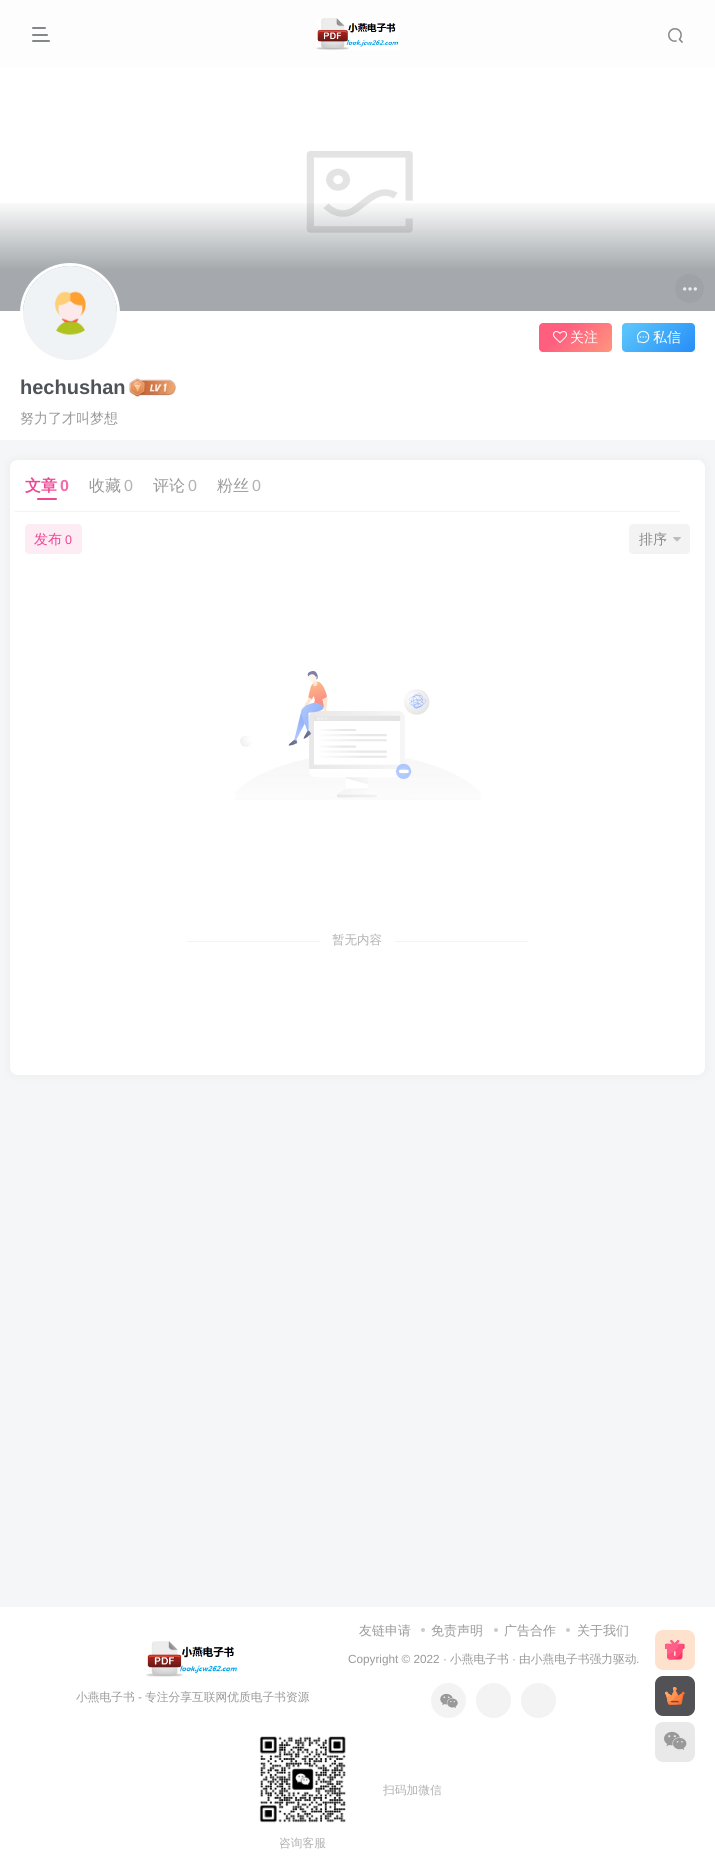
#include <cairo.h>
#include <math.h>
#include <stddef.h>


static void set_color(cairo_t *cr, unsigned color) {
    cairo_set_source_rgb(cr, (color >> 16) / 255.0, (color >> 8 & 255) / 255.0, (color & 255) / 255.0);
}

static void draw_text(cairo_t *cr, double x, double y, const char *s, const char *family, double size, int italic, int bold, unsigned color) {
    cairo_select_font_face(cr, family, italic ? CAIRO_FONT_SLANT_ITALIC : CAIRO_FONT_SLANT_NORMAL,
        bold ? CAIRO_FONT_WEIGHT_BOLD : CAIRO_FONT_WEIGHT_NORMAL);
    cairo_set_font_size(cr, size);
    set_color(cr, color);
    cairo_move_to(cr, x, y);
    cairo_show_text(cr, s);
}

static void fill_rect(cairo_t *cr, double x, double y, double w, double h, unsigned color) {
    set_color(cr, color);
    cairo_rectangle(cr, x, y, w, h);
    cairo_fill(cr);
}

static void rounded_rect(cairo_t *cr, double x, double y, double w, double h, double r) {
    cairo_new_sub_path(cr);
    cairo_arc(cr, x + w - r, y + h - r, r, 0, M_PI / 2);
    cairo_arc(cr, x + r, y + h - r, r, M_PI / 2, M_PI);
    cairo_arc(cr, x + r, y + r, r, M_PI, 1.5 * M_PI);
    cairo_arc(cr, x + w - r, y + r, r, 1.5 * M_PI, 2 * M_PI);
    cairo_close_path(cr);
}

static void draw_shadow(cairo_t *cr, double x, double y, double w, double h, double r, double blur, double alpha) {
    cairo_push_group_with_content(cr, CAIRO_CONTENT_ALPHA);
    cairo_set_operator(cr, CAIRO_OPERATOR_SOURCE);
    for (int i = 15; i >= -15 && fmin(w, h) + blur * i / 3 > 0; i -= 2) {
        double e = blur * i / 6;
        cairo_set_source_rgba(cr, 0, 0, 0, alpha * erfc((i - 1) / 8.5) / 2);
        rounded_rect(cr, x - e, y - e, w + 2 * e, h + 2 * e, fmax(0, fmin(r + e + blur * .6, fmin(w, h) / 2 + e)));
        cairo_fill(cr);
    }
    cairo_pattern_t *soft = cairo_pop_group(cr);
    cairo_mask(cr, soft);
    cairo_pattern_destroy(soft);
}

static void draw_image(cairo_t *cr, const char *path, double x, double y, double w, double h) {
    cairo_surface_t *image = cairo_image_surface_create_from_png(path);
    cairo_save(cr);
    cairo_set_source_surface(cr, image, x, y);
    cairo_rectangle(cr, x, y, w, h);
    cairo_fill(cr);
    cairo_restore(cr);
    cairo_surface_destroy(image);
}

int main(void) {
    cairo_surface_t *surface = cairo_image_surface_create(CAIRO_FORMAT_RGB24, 715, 1868);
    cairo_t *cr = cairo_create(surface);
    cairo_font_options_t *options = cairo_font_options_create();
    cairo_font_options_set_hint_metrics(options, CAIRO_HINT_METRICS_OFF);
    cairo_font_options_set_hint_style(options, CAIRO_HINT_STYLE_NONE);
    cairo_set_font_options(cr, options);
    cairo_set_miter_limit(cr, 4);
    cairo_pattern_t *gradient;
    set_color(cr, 0xF5F6F7);
    cairo_paint(cr);
    cairo_set_source_rgba(cr, 1, 1, 1, 0.8);
    cairo_rectangle(cr, 0, 0, 715, 68);
    cairo_fill(cr);
    set_color(cr, 0x83868A);
    rounded_rect(cr, 32, 27, 14, 2, 1);
    cairo_fill(cr);
    rounded_rect(cr, 32, 34, 16, 2, 1);
    cairo_fill(cr);
    rounded_rect(cr, 32, 40, 18, 2, 1);
    cairo_fill(cr);
    draw_image(cr, "assets/img1.png", 316, 18, 83, 32);
    draw_image(cr, "assets/img2.png", 668, 28, 15, 15);
    fill_rect(cr, 0, 68, 715, 372, 0xFFFFFF);
    draw_image(cr, "assets/img3.png", 306, 151, 107, 82);
    gradient = cairo_pattern_create_linear(358, 311, 358, 68);
    cairo_pattern_add_color_stop_rgba(gradient, 0.17, 0.114, 0.161, 0.192, 0.4);
    cairo_pattern_add_color_stop_rgba(gradient, 0.46, 0.114, 0.161, 0.192, 0);
    cairo_set_source(cr, gradient);
    cairo_pattern_destroy(gradient);
    cairo_rectangle(cr, 0, 203, 715, 108);
    cairo_fill(cr);
    set_color(cr, 0x9FA3A7);
    cairo_arc(cr, 689.5, 288.5, 14.5, 0, 2 * M_PI);
    cairo_fill(cr);
    draw_image(cr, "assets/img4.png", 683, 287, 14, 4);
    cairo_arc(cr, 70, 313, 48.5, 0, 2 * M_PI);
    set_color(cr, 0xFFFFFF);
    cairo_set_line_width(cr, 3);
    cairo_stroke(cr);
    draw_image(cr, "assets/img5.png", 23, 266, 94, 94);
    gradient = cairo_pattern_create_linear(550, 312, 601, 363);
    cairo_pattern_add_color_stop_rgba(gradient, 0.3, 1, 0.369, 0.498, 1);
    cairo_pattern_add_color_stop_rgba(gradient, 1, 1, 0.588, 0.494, 1);
    cairo_set_source(cr, gradient);
    cairo_pattern_destroy(gradient);
    rounded_rect(cr, 539, 323, 73, 29, 4);
    cairo_fill(cr);
    draw_image(cr, "assets/img6.png", 553, 331, 14, 12);
    draw_text(cr, 570, 342, "关注", "WenQuanYi Zen Hei Medium", 14, 0, 0, 0xFFFFFF);
    gradient = cairo_pattern_create_linear(633, 312, 684, 363);
    cairo_pattern_add_color_stop_rgba(gradient, 0.1, 0.349, 0.765, 0.984, 1);
    cairo_pattern_add_color_stop_rgba(gradient, 1, 0.149, 0.553, 0.969, 1);
    cairo_set_source(cr, gradient);
    cairo_pattern_destroy(gradient);
    rounded_rect(cr, 622, 323, 73, 29, 4);
    cairo_fill(cr);
    draw_image(cr, "assets/img7.png", 637, 330, 13, 14);
    draw_text(cr, 653, 342, "私信", "WenQuanYi Zen Hei Medium", 14, 0, 0, 0xFFFFFF);
    draw_text(cr, 20, 394, "hechushan", "Liberation Sans", 20, 0, 1, 0x4E5358);
    draw_image(cr, "assets/img8.png", 129, 378, 47, 19);
    draw_text(cr, 20, 423, "努力了才叫梦想", "WenQuanYi Zen Hei Medium", 14, 0, 0, 0x999999);
    set_color(cr, 0x747474);
    draw_shadow(cr, 10, 460, 695, 615, 8, 5, 0.08);
    set_color(cr, 0xFFFFFF);
    rounded_rect(cr, 10, 460, 695, 615, 8);
    cairo_fill(cr);
    fill_rect(cr, 15, 511, 665, 1, 0xF3F3F3);
    draw_text(cr, 25, 491, "文章", "WenQuanYi Zen Hei", 16, 0, 1, 0xF04494);
    draw_text(cr, 60, 491, "0", "Liberation Sans", 16, 0, 1, 0xF369A9);
    set_color(cr, 0xF04494);
    rounded_rect(cr, 37, 498, 20, 2, 1);
    cairo_fill(cr);
    draw_text(cr, 89, 491, "收藏", "WenQuanYi Zen Hei Medium", 16, 0, 0, 0x999999);
    draw_text(cr, 124, 491, "0", "Liberation Sans", 16, 0, 0, 0xB1B1B1);
    draw_text(cr, 153, 491, "评论", "WenQuanYi Zen Hei Medium", 16, 0, 0, 0x999999);
    draw_text(cr, 188, 491, "0", "Liberation Sans", 16, 0, 0, 0xB1B1B1);
    draw_text(cr, 217, 491, "粉丝", "WenQuanYi Zen Hei Medium", 16, 0, 0, 0x999999);
    draw_text(cr, 252, 491, "0", "Liberation Sans", 16, 0, 0, 0xB1B1B1);
    set_color(cr, 0xFEECF4);
    rounded_rect(cr, 25, 524, 57, 30, 4);
    cairo_fill(cr);
    draw_text(cr, 34, 544, "发布", "WenQuanYi Zen Hei Medium", 14, 0, 0, 0xF04494);
    draw_text(cr, 65, 544, "0", "Liberation Sans", 12.5, 0, 0, 0xF04494);
    set_color(cr, 0xF3F3F3);
    rounded_rect(cr, 629, 524, 61, 30, 4);
    cairo_fill(cr);
    draw_text(cr, 639, 544, "排序", "WenQuanYi Zen Hei Medium", 14, 0, 0, 0x888888);
    draw_image(cr, "assets/img9.png", 673, 537, 8, 5);
    draw_image(cr, "assets/img10.png", 235, 671, 246, 129);
    fill_rect(cr, 187, 941, 133, 1, 0xF3F3F3);
    draw_text(cr, 332, 944, "暂无内容", "WenQuanYi Zen Hei Medium", 12.5, 0, 0, 0xB1B1B1);
    fill_rect(cr, 395, 941, 133, 1, 0xF3F3F3);
    fill_rect(cr, 0, 1607, 715, 261, 0xFFFFFF);
    draw_text(cr, 359, 1635, "友链申请", "WenQuanYi Zen Hei Medium", 13, 0, 0, 0x999999);
    set_color(cr, 0xCACBCD);
    cairo_new_path(cr);
    cairo_arc(cr, 423, 1630, 2, 0, 2 * M_PI);
    cairo_fill(cr);
    draw_text(cr, 431, 1635, "免责声明", "WenQuanYi Zen Hei Medium", 13, 0, 0, 0x999999);
    set_color(cr, 0xCACBCD);
    cairo_new_path(cr);
    cairo_arc(cr, 496, 1630, 2, 0, 2 * M_PI);
    cairo_fill(cr);
    draw_text(cr, 504, 1635, "广告合作", "WenQuanYi Zen Hei Medium", 13, 0, 0, 0x999999);
    set_color(cr, 0xCACBCD);
    cairo_new_path(cr);
    cairo_arc(cr, 568, 1630, 2, 0, 2 * M_PI);
    cairo_fill(cr);
    draw_text(cr, 577, 1635, "关于我们", "WenQuanYi Zen Hei Medium", 13, 0, 0, 0x999999);
    draw_text(cr, 348, 1663, "Copyright © 2022 ·", "Liberation Sans", 11.75, 0, 0, 0x999999);
    draw_text(cr, 450, 1663, "小燕电子书", "WenQuanYi Zen Hei Medium", 11.75, 0, 0, 0x999999);
    draw_text(cr, 512, 1663, "·", "Liberation Sans", 11.75, 0, 0, 0x999999);
    draw_text(cr, 519, 1663, "由小燕电子书强力驱动", "WenQuanYi Zen Hei Medium", 11.75, 0, 0, 0x999999);
    draw_text(cr, 636, 1663, ".", "Liberation Sans", 11.75, 0, 0, 0x999999);
    set_color(cr, 0xF3F3F3);
    cairo_new_path(cr);
    cairo_arc(cr, 448.5, 1700.5, 17.5, 0, 2 * M_PI);
    cairo_fill(cr);
    draw_image(cr, "assets/img11.png", 440, 1693, 18, 15);
    cairo_arc(cr, 493.5, 1700.5, 17.5, 0, 2 * M_PI);
    cairo_fill(cr);
    cairo_arc(cr, 538.5, 1700.5, 17.5, 0, 2 * M_PI);
    cairo_fill(cr);
    draw_image(cr, "assets/img12.png", 146, 1641, 91, 36);
    draw_text(cr, 76, 1701, "小燕电子书", "WenQuanYi Zen Hei Medium", 11.75, 0, 0, 0x999999);
    draw_text(cr, 138, 1701, "-", "Liberation Sans", 11.75, 0, 0, 0x999999);
    draw_text(cr, 145, 1701, "专注分享互联网优质电子书资源", "WenQuanYi Zen Hei Medium", 11.75, 0, 0, 0x999999);
    draw_text(cr, 383, 1794, "扫码加微信", "WenQuanYi Zen Hei Medium", 11.75, 0, 0, 0xB1B1B1);
    draw_image(cr, "assets/img13.png", 259, 1736, 87, 87);
    draw_text(cr, 279, 1847, "咨询客服", "WenQuanYi Zen Hei Medium", 11.75, 0, 0, 0xB1B1B1);
    set_color(cr, 0xFFE2CD);
    rounded_rect(cr, 655, 1630, 40, 40, 8);
    cairo_fill(cr);
    draw_image(cr, "assets/img14.png", 665, 1640, 20, 20);
    set_color(cr, 0x515156);
    rounded_rect(cr, 655, 1676, 40, 40, 8);
    cairo_fill(cr);
    draw_image(cr, "assets/img15.png", 665, 1687, 20, 18);
    set_color(cr, 0xE9E9E9);
    rounded_rect(cr, 655, 1722, 40, 40, 8);
    cairo_fill(cr);
    draw_image(cr, "assets/img16.png", 664, 1731, 23, 19);
    cairo_surface_write_to_png(surface, "output.png");
    cairo_font_options_destroy(options);
    cairo_destroy(cr);
    cairo_surface_destroy(surface);
    return 0;
}
